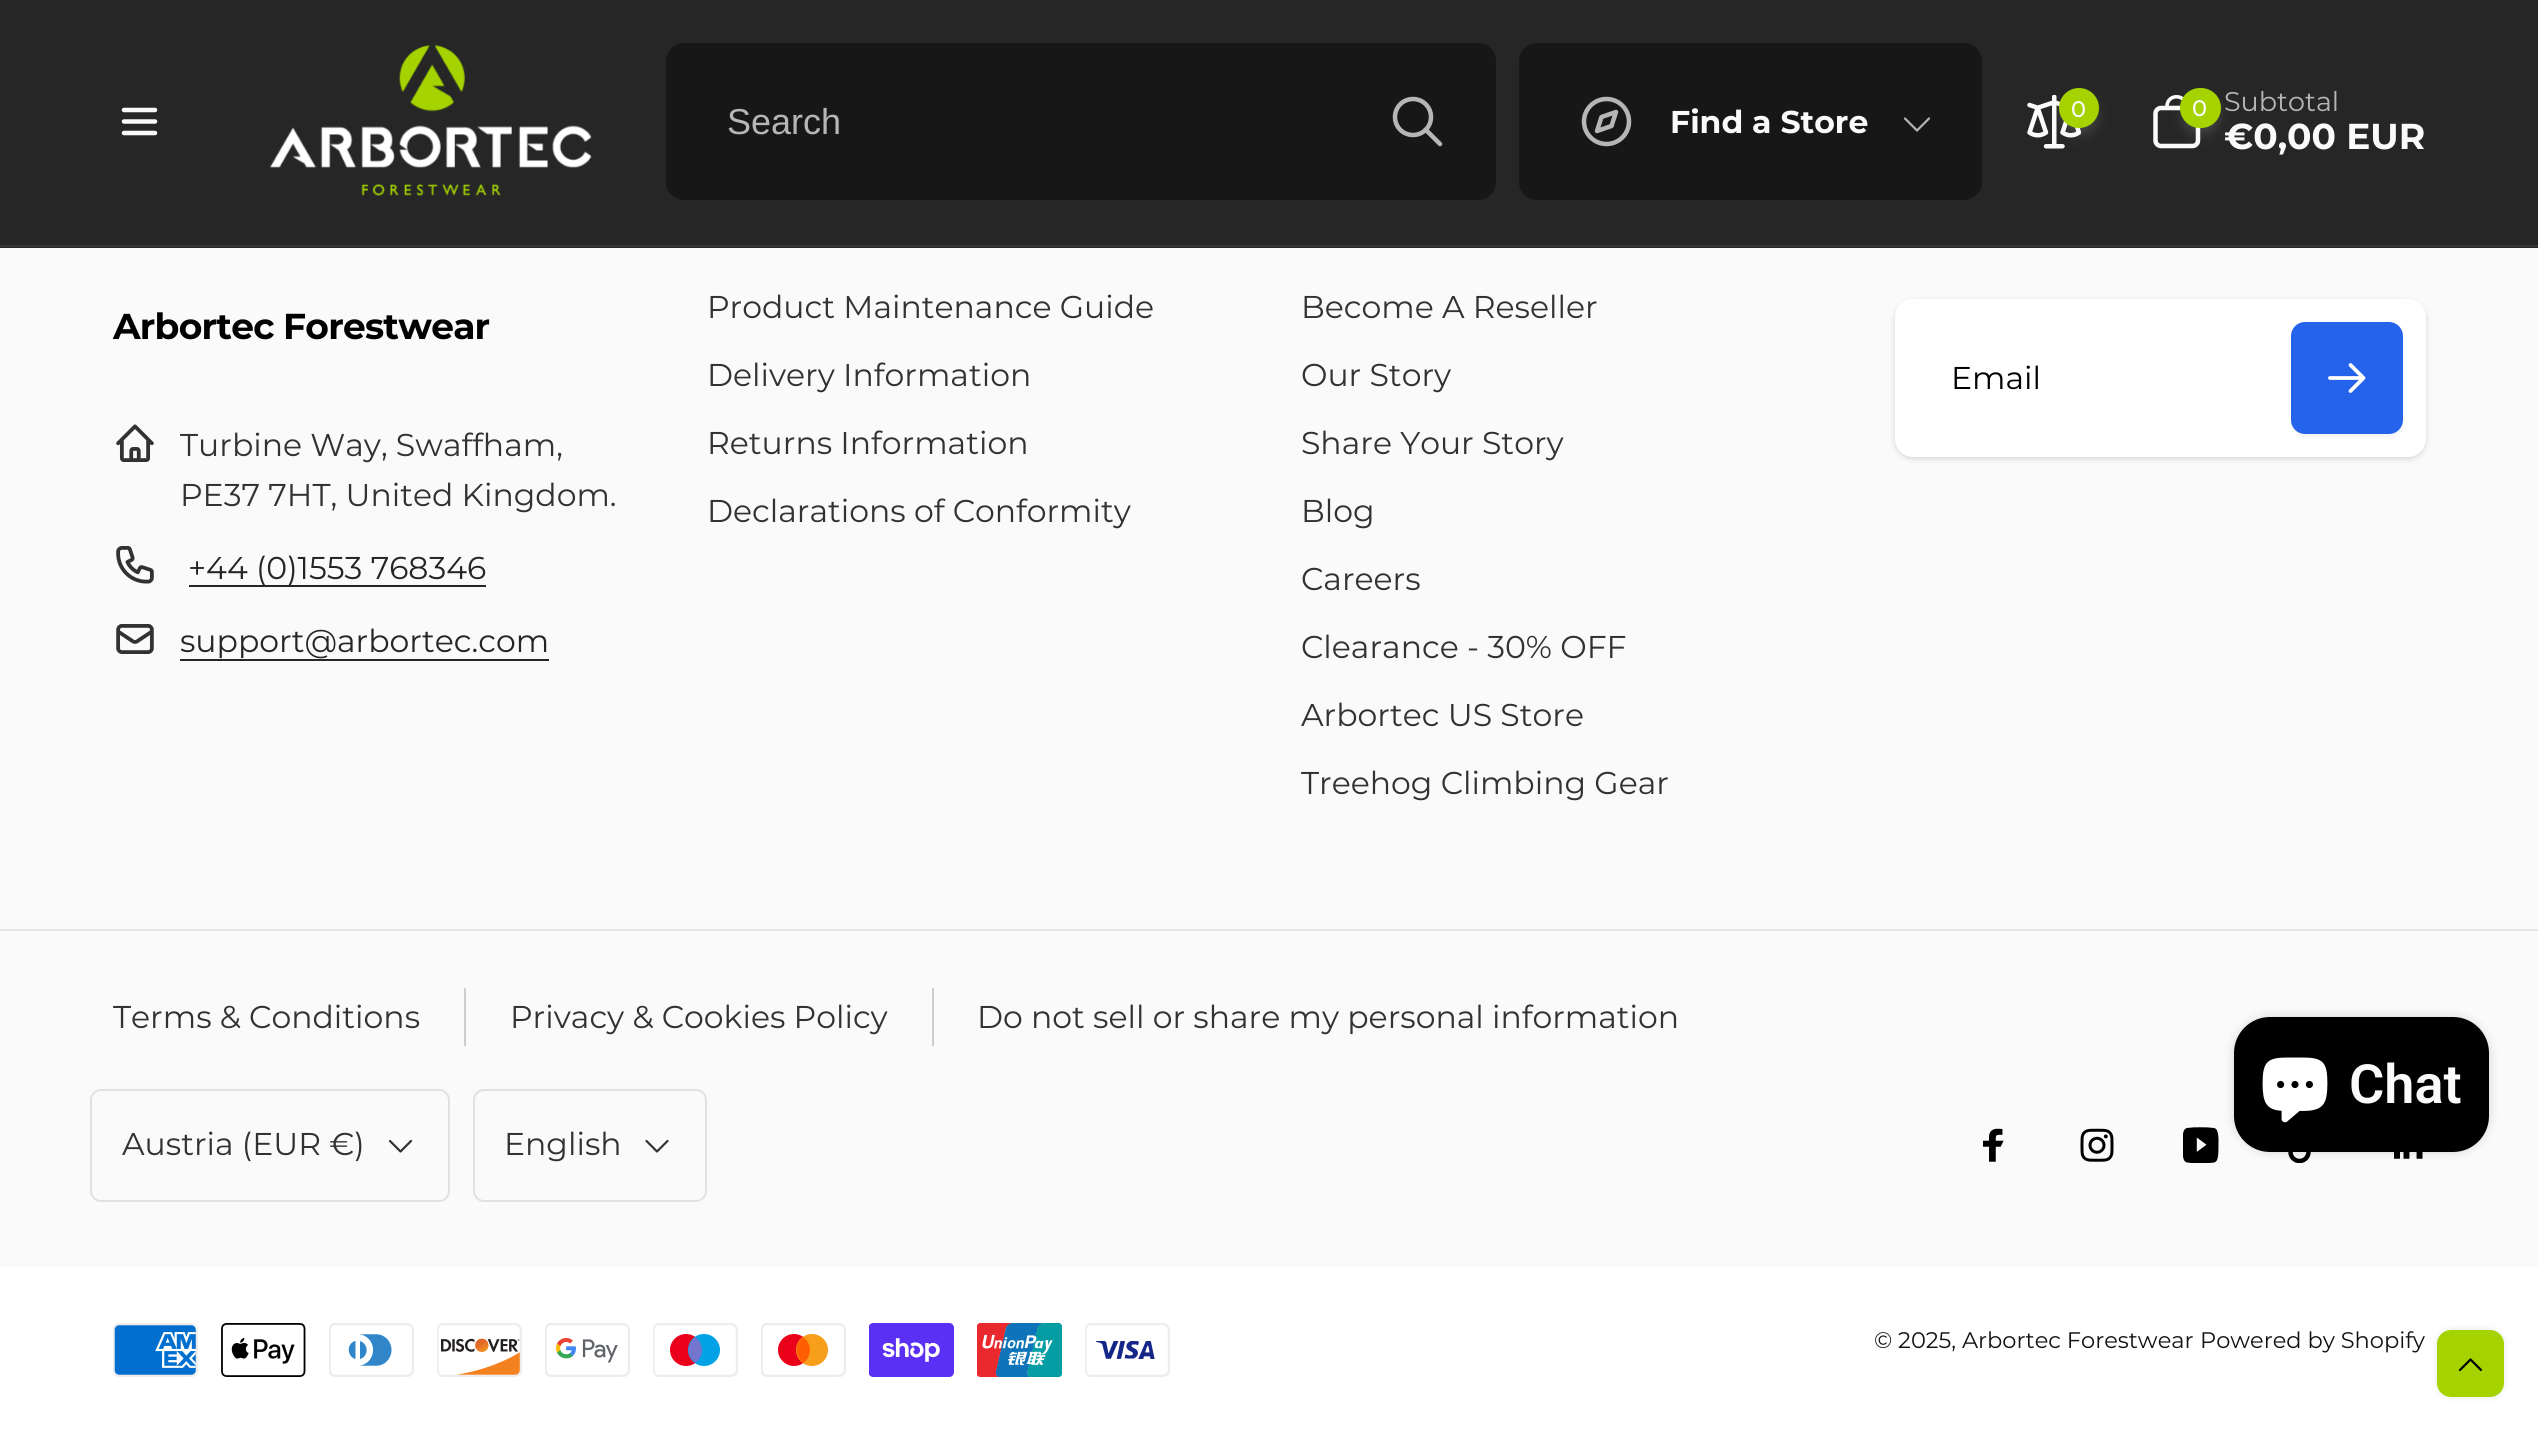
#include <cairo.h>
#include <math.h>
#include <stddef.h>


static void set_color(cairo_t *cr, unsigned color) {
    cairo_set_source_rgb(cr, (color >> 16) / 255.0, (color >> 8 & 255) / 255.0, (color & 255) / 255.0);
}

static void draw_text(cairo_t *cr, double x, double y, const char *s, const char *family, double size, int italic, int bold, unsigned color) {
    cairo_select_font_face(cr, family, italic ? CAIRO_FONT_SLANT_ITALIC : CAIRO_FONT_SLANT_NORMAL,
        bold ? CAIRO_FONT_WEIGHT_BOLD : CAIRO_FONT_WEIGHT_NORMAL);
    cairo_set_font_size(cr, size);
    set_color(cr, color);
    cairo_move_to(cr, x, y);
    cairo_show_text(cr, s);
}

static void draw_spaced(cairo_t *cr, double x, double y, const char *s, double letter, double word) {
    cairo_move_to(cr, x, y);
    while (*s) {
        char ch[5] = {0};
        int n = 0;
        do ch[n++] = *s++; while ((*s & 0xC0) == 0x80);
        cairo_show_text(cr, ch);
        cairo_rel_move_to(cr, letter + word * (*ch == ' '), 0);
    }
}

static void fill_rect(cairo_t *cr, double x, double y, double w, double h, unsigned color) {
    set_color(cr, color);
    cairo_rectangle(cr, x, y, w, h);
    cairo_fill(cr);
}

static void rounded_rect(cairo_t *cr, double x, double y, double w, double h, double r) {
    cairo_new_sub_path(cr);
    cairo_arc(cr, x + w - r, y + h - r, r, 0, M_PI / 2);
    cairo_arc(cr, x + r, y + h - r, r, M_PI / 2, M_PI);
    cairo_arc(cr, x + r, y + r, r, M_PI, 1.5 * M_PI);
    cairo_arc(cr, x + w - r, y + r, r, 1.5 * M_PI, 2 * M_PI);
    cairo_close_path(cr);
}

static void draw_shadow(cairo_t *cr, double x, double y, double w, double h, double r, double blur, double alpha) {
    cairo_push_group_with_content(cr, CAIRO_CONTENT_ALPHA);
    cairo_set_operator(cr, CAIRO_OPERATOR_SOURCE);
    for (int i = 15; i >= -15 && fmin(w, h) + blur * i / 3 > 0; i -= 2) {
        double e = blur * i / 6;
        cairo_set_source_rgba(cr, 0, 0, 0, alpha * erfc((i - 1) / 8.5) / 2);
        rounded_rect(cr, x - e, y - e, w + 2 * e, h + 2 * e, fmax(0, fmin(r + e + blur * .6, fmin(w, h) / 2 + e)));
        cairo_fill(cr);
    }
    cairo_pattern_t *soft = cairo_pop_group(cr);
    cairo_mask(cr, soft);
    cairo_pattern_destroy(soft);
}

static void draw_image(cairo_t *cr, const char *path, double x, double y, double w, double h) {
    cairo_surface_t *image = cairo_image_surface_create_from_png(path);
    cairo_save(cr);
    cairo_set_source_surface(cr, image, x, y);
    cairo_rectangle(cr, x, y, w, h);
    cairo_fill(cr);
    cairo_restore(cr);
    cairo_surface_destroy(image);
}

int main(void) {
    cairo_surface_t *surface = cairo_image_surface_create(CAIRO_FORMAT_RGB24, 2538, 1433);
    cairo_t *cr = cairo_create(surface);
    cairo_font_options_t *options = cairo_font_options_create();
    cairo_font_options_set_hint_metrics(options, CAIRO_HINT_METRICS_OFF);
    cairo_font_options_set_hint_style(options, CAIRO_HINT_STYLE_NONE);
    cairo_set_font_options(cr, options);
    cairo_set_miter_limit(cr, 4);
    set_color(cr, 0xFAFAFA);
    cairo_paint(cr);
    fill_rect(cr, 0, 0, 2538, 248, 0x262626);
    fill_rect(cr, 0, 245, 2538, 2, 0x373737);
    cairo_new_path(cr);
    cairo_move_to(cr, 124, 110);
    cairo_line_to(cr, 155, 110);
    cairo_move_to(cr, 124, 121.5);
    cairo_line_to(cr, 155, 121.5);
    cairo_move_to(cr, 124, 133);
    cairo_line_to(cr, 155, 133);
    set_color(cr, 0xFAFAFA);
    cairo_set_line_width(cr, 4.5);
    cairo_set_line_cap(cr, CAIRO_LINE_CAP_ROUND);
    cairo_stroke(cr);
    draw_image(cr, "assets/img1.png", 269, 45, 323, 151);
    set_color(cr, 0x171717);
    rounded_rect(cr, 666, 43, 830, 157, 18);
    cairo_fill(cr);
    draw_text(cr, 727, 134, "Search", "Liberation Sans", 36, 0, 0, 0xB6B6B6);
    cairo_new_path(cr);
    cairo_move_to(cr, 1440, 144);
    cairo_line_to(cr, 1425.5, 129.5);
    cairo_move_to(cr, 1413, 135);
    cairo_curve_to(cr, 1423, 135, 1431, 127, 1431, 117);
    cairo_curve_to(cr, 1431, 107, 1423, 99, 1413, 99);
    cairo_curve_to(cr, 1403, 99, 1395, 107, 1395, 117);
    cairo_curve_to(cr, 1395, 127, 1403, 135, 1413, 135);
    cairo_close_path(cr);
    cairo_set_line_join(cr, CAIRO_LINE_JOIN_ROUND);
    cairo_stroke(cr);
    set_color(cr, 0x171717);
    rounded_rect(cr, 1519, 43, 463, 157, 18);
    cairo_fill(cr);
    cairo_arc(cr, 1606.5, 121.5, 22.5, 0, 2 * M_PI);
    set_color(cr, 0xB6B6B6);
    cairo_set_line_cap(cr, CAIRO_LINE_CAP_BUTT);
    cairo_set_line_join(cr, CAIRO_LINE_JOIN_MITER);
    cairo_stroke(cr);
    cairo_new_path(cr);
    cairo_move_to(cr, 1616, 112);
    cairo_line_to(cr, 1611.5, 126);
    cairo_line_to(cr, 1597, 131);
    cairo_line_to(cr, 1601.5, 117);
    cairo_close_path(cr);
    cairo_set_line_cap(cr, CAIRO_LINE_CAP_ROUND);
    cairo_set_line_join(cr, CAIRO_LINE_JOIN_ROUND);
    cairo_stroke(cr);
    draw_text(cr, 1670, 133, "Find a Store", "Montserrat", 31.5, 0, 1, 0xFAFAFA);
    cairo_new_path(cr);
    cairo_move_to(cr, 1929, 118.5);
    cairo_line_to(cr, 1917, 130.5);
    cairo_line_to(cr, 1905, 118.5);
    set_color(cr, 0xB6B6B6);
    cairo_set_line_width(cr, 2.2);
    cairo_stroke(cr);
    draw_image(cr, "assets/img2.png", 2027, 95, 54, 54);
    set_color(cr, 0xFAFAFA);
    draw_shadow(cr, 2061, 95, 36, 36, 18, 4.5, 0.06);
    draw_shadow(cr, 2061, 99, 36, 36, 18, 7, 0.1);
    set_color(cr, 0xA4D300);
    cairo_arc(cr, 2079, 108, 20, 0, 2 * M_PI);
    cairo_fill(cr);
    draw_text(cr, 2071, 117, "0", "Montserrat Medium", 22.5, 0, 0, 0xFAFAFA);
    cairo_new_path(cr);
    cairo_move_to(cr, 2192.5, 108);
    cairo_line_to(cr, 2161, 108);
    cairo_curve_to(cr, 2158, 108, 2155.5, 110.5, 2155.5, 113.5);
    cairo_line_to(cr, 2155.5, 140.5);
    cairo_curve_to(cr, 2155.5, 143.5, 2158, 146, 2161, 146);
    cairo_line_to(cr, 2192.5, 146);
    cairo_curve_to(cr, 2195.5, 146, 2198, 143.5, 2198, 140.5);
    cairo_line_to(cr, 2198, 113.5);
    cairo_curve_to(cr, 2198, 110.5, 2195.5, 108, 2192.5, 108);
    cairo_close_path(cr);
    cairo_set_line_width(cr, 4.5);
    cairo_set_line_cap(cr, CAIRO_LINE_CAP_BUTT);
    cairo_set_line_join(cr, CAIRO_LINE_JOIN_MITER);
    cairo_stroke(cr);
    cairo_new_path(cr);
    cairo_move_to(cr, 2167, 106.5);
    cairo_curve_to(cr, 2167, 93.5, 2186, 93.5, 2186, 106.5);
    cairo_set_line_width(cr, 3.6);
    cairo_set_line_cap(cr, CAIRO_LINE_CAP_ROUND);
    cairo_set_line_join(cr, CAIRO_LINE_JOIN_ROUND);
    cairo_stroke(cr);
    set_color(cr, 0xFAFAFA);
    draw_shadow(cr, 2183, 95, 36, 36, 18, 4.5, 0.06);
    draw_shadow(cr, 2183, 99, 36, 36, 18, 7, 0.1);
    set_color(cr, 0xA4D300);
    rounded_rect(cr, 2180, 88, 41, 40, 20);
    cairo_fill(cr);
    draw_text(cr, 2192, 116, "0", "Montserrat Medium", 22.5, 0, 0, 0xFAFAFA);
    draw_text(cr, 2224, 111, "Subtotal", "Montserrat", 27, 0, 0, 0xB6B6B6);
    draw_text(cr, 2224, 149, "€0,00 EUR", "Montserrat", 36, 0, 1, 0xFAFAFA);
    set_color(cr, 0x000000);
    draw_spaced(cr, 113, 339, "Arbortec Forestwear", -0.75, 0);
    draw_image(cr, "assets/img3.png", 116, 424, 38, 38);
    draw_text(cr, 180, 456, "Turbine Way, Swaffham,", "Montserrat", 31.5, 0, 0, 0x323232);
    draw_text(cr, 180, 506, "PE37 7HT, United Kingdom.", "Montserrat", 31.5, 0, 0, 0x323232);
    draw_image(cr, "assets/img4.png", 116, 546, 38, 38);
    fill_rect(cr, 189, 585, 297, 2, 0x262626);
    draw_text(cr, 188, 579, "+44 (0)1553 768346", "Montserrat", 31.5, 0, 0, 0x252525);
    draw_image(cr, "assets/img5.png", 116, 624, 38, 30);
    draw_text(cr, 180, 652, "support@arbortec.com", "Montserrat", 31.5, 0, 0, 0x252525);
    fill_rect(cr, 180, 659, 369, 2, 0x262626);
    draw_text(cr, 707, 318, "Product Maintenance Guide", "Montserrat", 31.5, 0, 0, 0x323232);
    draw_text(cr, 707, 386, "Delivery Information", "Montserrat", 31.5, 0, 0, 0x323232);
    draw_text(cr, 707, 454, "Returns Information", "Montserrat", 31.5, 0, 0, 0x323232);
    draw_text(cr, 707, 522, "Declarations of Conformity", "Montserrat", 31.5, 0, 0, 0x323232);
    draw_text(cr, 1301, 318, "Become A Reseller", "Montserrat", 31.5, 0, 0, 0x323232);
    draw_text(cr, 1301, 386, "Our Story", "Montserrat", 31.5, 0, 0, 0x323232);
    draw_text(cr, 1301, 454, "Share Your Story", "Montserrat", 31.5, 0, 0, 0x323232);
    draw_text(cr, 1301, 522, "Blog", "Montserrat", 31.5, 0, 0, 0x323232);
    draw_text(cr, 1301, 590, "Careers", "Montserrat", 31.5, 0, 0, 0x323232);
    draw_text(cr, 1301, 658, "Clearance - 30% OFF", "Montserrat", 31.5, 0, 0, 0x323232);
    draw_text(cr, 1301, 726, "Arbortec US Store", "Montserrat", 31.5, 0, 0, 0x323232);
    draw_text(cr, 1301, 794, "Treehog Climbing Gear", "Montserrat", 31.5, 0, 0, 0x323232);
    set_color(cr, 0x000000);
    draw_shadow(cr, 1895, 302, 531, 157, 18, 3.5, 0.1);
    draw_shadow(cr, 1895, 302, 531, 157, 18, 2, 0.06);
    set_color(cr, 0xFFFFFF);
    rounded_rect(cr, 1895, 299, 531, 158, 18);
    cairo_fill(cr);
    draw_text(cr, 1951, 389, "Email", "Montserrat", 31.5, 0, 0, 0x000000);
    set_color(cr, 0x000000);
    draw_shadow(cr, 2291, 324, 112, 113, 14, 2, 0.05);
    set_color(cr, 0x2563EB);
    rounded_rect(cr, 2292, 323, 110, 110, 13);
    cairo_fill_preserve(cr);
    cairo_set_line_width(cr, 2);
    cairo_set_line_cap(cr, CAIRO_LINE_CAP_BUTT);
    cairo_set_line_join(cr, CAIRO_LINE_JOIN_MITER);
    cairo_stroke(cr);
    cairo_new_path(cr);
    cairo_move_to(cr, 2350.5, 365);
    cairo_line_to(cr, 2363.5, 378);
    cairo_move_to(cr, 2363.5, 378);
    cairo_line_to(cr, 2350.5, 391);
    cairo_move_to(cr, 2363.5, 378);
    cairo_line_to(cr, 2330, 378);
    set_color(cr, 0xFFFFFF);
    cairo_set_line_width(cr, 3.8);
    cairo_set_line_cap(cr, CAIRO_LINE_CAP_ROUND);
    cairo_set_line_join(cr, CAIRO_LINE_JOIN_ROUND);
    cairo_stroke(cr);
    fill_rect(cr, 0, 929, 2538, 2, 0xE6E6E6);
    draw_text(cr, 113, 1028, "Terms & Conditions", "Montserrat", 31.5, 0, 0, 0x323232);
    fill_rect(cr, 464, 988, 2, 58, 0xCDCDCD);
    draw_text(cr, 510, 1028, "Privacy & Cookies Policy", "Montserrat", 31.5, 0, 0, 0x323232);
    fill_rect(cr, 932, 988, 2, 58, 0xCDCDCD);
    draw_text(cr, 977, 1028, "Do not sell or share my personal information", "Montserrat", 31.5, 0, 0, 0x323232);
    rounded_rect(cr, 91, 1090, 358, 111, 10);
    set_color(cr, 0xE1E1E1);
    cairo_set_line_width(cr, 2);
    cairo_set_line_cap(cr, CAIRO_LINE_CAP_BUTT);
    cairo_set_line_join(cr, CAIRO_LINE_JOIN_MITER);
    cairo_stroke(cr);
    draw_text(cr, 122, 1155, "Austria (EUR €)", "Montserrat", 31.5, 0, 0, 0x323232);
    cairo_new_path(cr);
    cairo_move_to(cr, 411, 1141);
    cairo_line_to(cr, 400.5, 1151.5);
    cairo_line_to(cr, 390, 1141);
    cairo_set_line_width(cr, 2.2);
    cairo_set_line_cap(cr, CAIRO_LINE_CAP_ROUND);
    cairo_set_line_join(cr, CAIRO_LINE_JOIN_ROUND);
    cairo_stroke(cr);
    rounded_rect(cr, 474, 1090, 232, 111, 10);
    set_color(cr, 0xE1E1E1);
    cairo_set_line_width(cr, 2);
    cairo_set_line_cap(cr, CAIRO_LINE_CAP_BUTT);
    cairo_set_line_join(cr, CAIRO_LINE_JOIN_MITER);
    cairo_stroke(cr);
    draw_text(cr, 504, 1155, "English", "Montserrat", 31.5, 0, 0, 0x323232);
    cairo_new_path(cr);
    cairo_move_to(cr, 667.5, 1141);
    cairo_line_to(cr, 657, 1151.5);
    cairo_line_to(cr, 646.5, 1141);
    cairo_set_line_width(cr, 2.2);
    cairo_set_line_cap(cr, CAIRO_LINE_CAP_ROUND);
    cairo_set_line_join(cr, CAIRO_LINE_JOIN_ROUND);
    cairo_stroke(cr);
    draw_image(cr, "assets/img6.png", 1983, 1128, 21, 34);
    draw_image(cr, "assets/img7.png", 2080, 1128, 34, 34);
    draw_image(cr, "assets/img8.png", 2183, 1127, 36, 36);
    draw_image(cr, "assets/img9.png", 2288, 1152, 23, 11);
    draw_image(cr, "assets/img10.png", 2394, 1152, 29, 7);
    fill_rect(cr, 0, 1267, 2538, 166, 0xFFFFFF);
    draw_image(cr, "assets/img11.png", 113, 1323, 85, 54);
    draw_image(cr, "assets/img12.png", 221, 1323, 85, 54);
    draw_image(cr, "assets/img13.png", 329, 1323, 85, 54);
    draw_image(cr, "assets/img14.png", 437, 1323, 85, 54);
    draw_image(cr, "assets/img15.png", 545, 1323, 85, 54);
    draw_image(cr, "assets/img16.png", 653, 1323, 85, 54);
    draw_image(cr, "assets/img17.png", 761, 1323, 85, 54);
    draw_image(cr, "assets/img18.png", 869, 1323, 85, 54);
    draw_image(cr, "assets/img19.png", 977, 1323, 85, 54);
    draw_image(cr, "assets/img20.png", 1085, 1323, 85, 54);
    draw_text(cr, 1874, 1348, "© 2025, Arbortec Forestwear", "Montserrat", 22.5, 0, 0, 0x121212);
    draw_text(cr, 2200, 1348, "Powered by Shopify", "Montserrat", 22.5, 0, 0, 0x121212);
    set_color(cr, 0x000000);
    draw_shadow(cr, 2234, 1017, 255, 135, 36, 5.5, 0.15);
    set_color(cr, 0x000000);
    rounded_rect(cr, 2234, 1017, 255, 135, 36);
    cairo_fill(cr);
    draw_image(cr, "assets/img21.png", 2262, 1057, 66, 66);
    draw_text(cr, 2349, 1103, "Chat", "Roboto SemiBold", 54, 0, 0, 0xFAFAFA);
    set_color(cr, 0x000000);
    draw_shadow(cr, 2437, 1330, 67, 67, 14, 3.5, 0.1);
    set_color(cr, 0xA4D300);
    rounded_rect(cr, 2438, 1331, 65, 65, 13);
    cairo_fill_preserve(cr);
    cairo_set_line_width(cr, 2);
    cairo_set_line_cap(cr, CAIRO_LINE_CAP_BUTT);
    cairo_set_line_join(cr, CAIRO_LINE_JOIN_MITER);
    cairo_stroke(cr);
    cairo_new_path(cr);
    cairo_move_to(cr, 2460, 1370);
    cairo_line_to(cr, 2470.5, 1359.5);
    cairo_line_to(cr, 2481, 1370);
    set_color(cr, 0x000000);
    cairo_set_line_width(cr, 2.2);
    cairo_set_line_cap(cr, CAIRO_LINE_CAP_ROUND);
    cairo_set_line_join(cr, CAIRO_LINE_JOIN_ROUND);
    cairo_stroke(cr);
    cairo_surface_write_to_png(surface, "output.png");
    cairo_font_options_destroy(options);
    cairo_destroy(cr);
    cairo_surface_destroy(surface);
    return 0;
}
